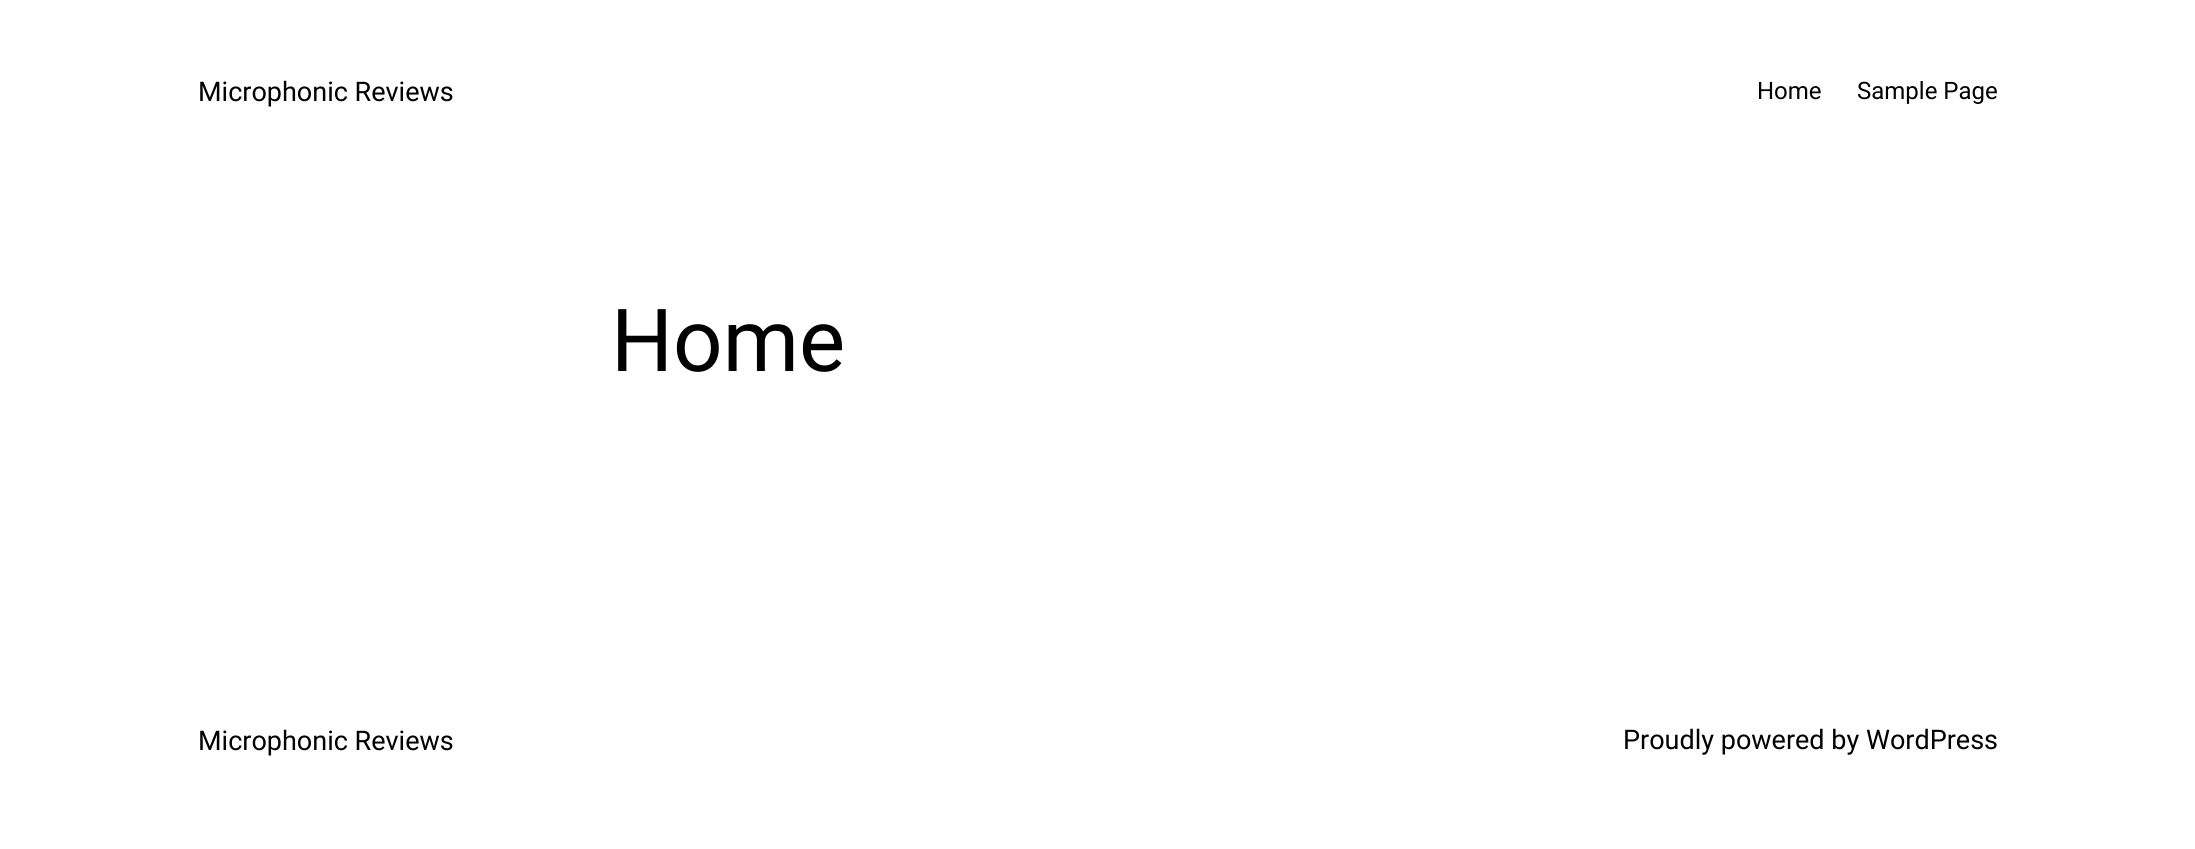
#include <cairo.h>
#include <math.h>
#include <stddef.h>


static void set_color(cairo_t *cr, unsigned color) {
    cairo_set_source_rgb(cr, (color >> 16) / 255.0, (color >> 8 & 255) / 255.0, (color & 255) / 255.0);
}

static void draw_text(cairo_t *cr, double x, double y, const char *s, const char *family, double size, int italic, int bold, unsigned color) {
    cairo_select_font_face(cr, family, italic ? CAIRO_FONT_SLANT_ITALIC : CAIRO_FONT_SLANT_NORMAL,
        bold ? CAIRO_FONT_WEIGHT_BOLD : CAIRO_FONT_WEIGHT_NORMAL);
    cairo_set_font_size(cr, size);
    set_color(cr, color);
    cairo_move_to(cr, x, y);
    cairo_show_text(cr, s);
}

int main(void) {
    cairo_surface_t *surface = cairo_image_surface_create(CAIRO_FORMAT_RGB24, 2195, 849);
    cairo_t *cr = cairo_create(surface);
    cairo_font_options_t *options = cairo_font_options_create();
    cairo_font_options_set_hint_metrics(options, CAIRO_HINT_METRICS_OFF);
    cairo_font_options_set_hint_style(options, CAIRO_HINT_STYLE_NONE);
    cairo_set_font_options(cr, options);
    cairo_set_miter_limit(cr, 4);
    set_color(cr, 0xFFFFFF);
    cairo_paint(cr);
    draw_text(cr, 198, 101, "Microphonic Reviews", "Roboto", 27, 0, 0, 0x000000);
    draw_text(cr, 1757, 99, "Home", "Roboto", 24, 0, 0, 0x000000);
    draw_text(cr, 1857, 99, "Sample Page", "Roboto", 24, 0, 0, 0x000000);
    draw_text(cr, 611, 371, "Home", "Roboto", 87, 0, 0, 0x000000);
    draw_text(cr, 198, 750, "Microphonic Reviews", "Roboto", 27, 0, 0, 0x000000);
    draw_text(cr, 1623, 749, "Proudly powered by WordPress", "Roboto", 27, 0, 0, 0x000000);
    cairo_surface_write_to_png(surface, "output.png");
    cairo_font_options_destroy(options);
    cairo_destroy(cr);
    cairo_surface_destroy(surface);
    return 0;
}
